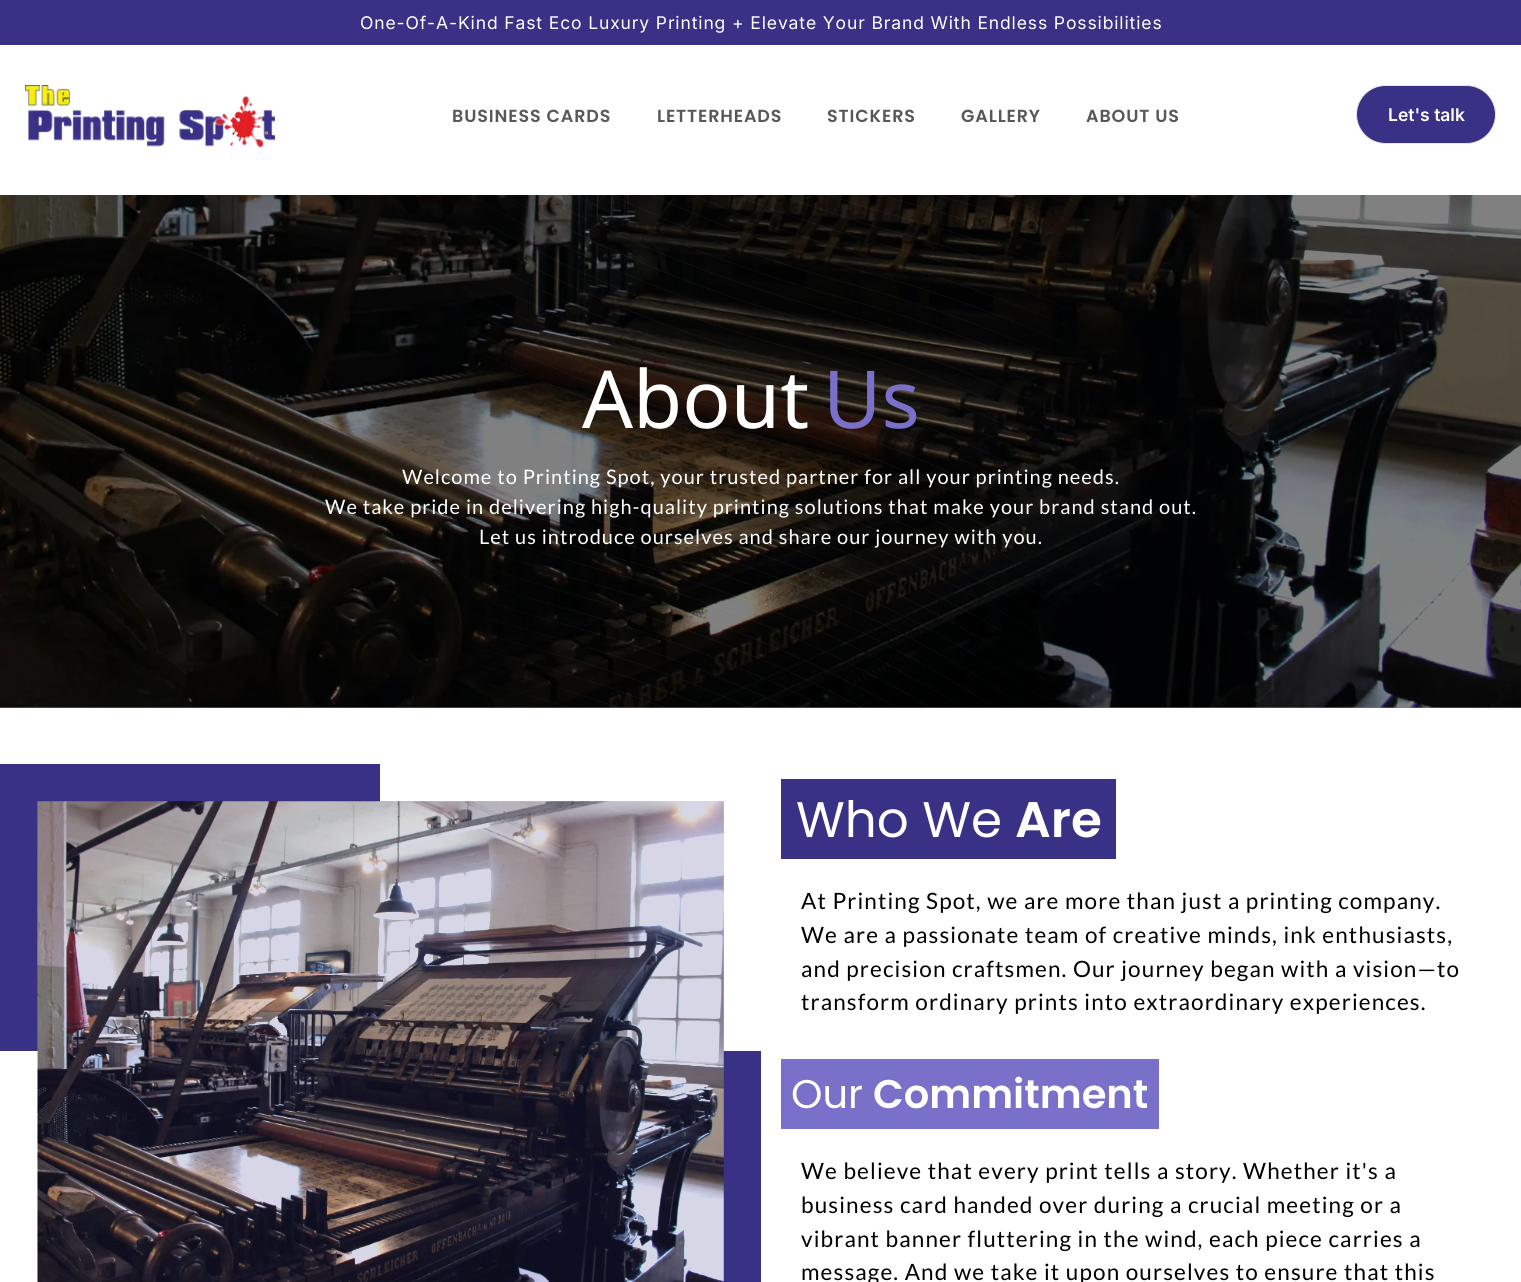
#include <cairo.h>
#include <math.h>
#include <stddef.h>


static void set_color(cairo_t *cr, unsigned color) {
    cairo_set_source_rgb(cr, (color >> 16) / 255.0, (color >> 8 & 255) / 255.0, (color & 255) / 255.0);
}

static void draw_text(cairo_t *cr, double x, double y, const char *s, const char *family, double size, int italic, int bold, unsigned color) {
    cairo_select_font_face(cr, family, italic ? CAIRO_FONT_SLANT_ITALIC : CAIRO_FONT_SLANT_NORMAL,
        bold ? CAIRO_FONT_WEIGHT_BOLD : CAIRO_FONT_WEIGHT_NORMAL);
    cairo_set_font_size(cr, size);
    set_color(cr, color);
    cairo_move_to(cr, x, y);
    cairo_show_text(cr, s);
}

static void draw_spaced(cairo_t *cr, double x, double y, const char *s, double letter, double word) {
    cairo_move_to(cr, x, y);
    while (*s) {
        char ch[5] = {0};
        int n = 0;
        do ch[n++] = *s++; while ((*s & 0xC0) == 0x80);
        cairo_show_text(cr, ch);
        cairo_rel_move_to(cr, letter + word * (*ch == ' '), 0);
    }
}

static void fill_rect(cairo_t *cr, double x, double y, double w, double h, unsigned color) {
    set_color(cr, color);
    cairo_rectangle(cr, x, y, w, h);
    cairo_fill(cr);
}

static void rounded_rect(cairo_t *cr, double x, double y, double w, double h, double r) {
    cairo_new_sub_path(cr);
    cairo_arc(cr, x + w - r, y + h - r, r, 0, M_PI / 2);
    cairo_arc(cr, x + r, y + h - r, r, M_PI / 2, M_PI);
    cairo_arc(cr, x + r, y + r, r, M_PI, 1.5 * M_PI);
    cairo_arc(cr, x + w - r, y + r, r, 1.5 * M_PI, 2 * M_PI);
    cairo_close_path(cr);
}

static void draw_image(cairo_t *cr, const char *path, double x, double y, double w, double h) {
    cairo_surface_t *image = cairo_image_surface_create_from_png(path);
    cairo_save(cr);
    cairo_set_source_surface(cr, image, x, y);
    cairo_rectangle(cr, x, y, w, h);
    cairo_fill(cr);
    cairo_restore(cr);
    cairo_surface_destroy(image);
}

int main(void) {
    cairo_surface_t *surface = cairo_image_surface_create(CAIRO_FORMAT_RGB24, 1521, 1282);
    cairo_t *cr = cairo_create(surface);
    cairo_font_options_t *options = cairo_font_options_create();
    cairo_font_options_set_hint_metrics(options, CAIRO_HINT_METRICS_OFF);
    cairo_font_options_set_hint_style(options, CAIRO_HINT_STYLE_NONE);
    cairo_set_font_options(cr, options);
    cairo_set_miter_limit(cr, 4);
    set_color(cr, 0xFFFFFF);
    cairo_paint(cr);
    fill_rect(cr, 380, 801, 344, 250, 0xD7D6E7);
    fill_rect(cr, 0, 707, 1521, 1, 0x808080);
    fill_rect(cr, 0, 0, 1521, 45, 0x393185);
    cairo_select_font_face(cr, "Inter", CAIRO_FONT_SLANT_NORMAL, CAIRO_FONT_WEIGHT_NORMAL);
    cairo_set_font_size(cr, 17.5);
    set_color(cr, 0xFFFFFF);
    draw_spaced(cr, 360, 29, "One-Of-A-Kind Fast Eco Luxury Printing + Elevate Your Brand With Endless Possibilities", 0.88, 0);
    draw_image(cr, "assets/img1.png", 25, 85, 250, 63);
    cairo_select_font_face(cr, "Poppins SemiBold", CAIRO_FONT_SLANT_NORMAL, CAIRO_FONT_WEIGHT_NORMAL);
    set_color(cr, 0x585858);
    draw_spaced(cr, 452, 122, "BUSINESS CARDS", 0.88, 0);
    draw_spaced(cr, 657, 122, "LETTERHEADS", 0.88, 0);
    draw_spaced(cr, 827, 122, "STICKERS", 0.88, 0);
    draw_spaced(cr, 961, 122, "GALLERY", 0.88, 0);
    draw_spaced(cr, 1086, 122, "ABOUT US", 0.88, 0);
    set_color(cr, 0x393185);
    rounded_rect(cr, 1356.5, 85.5, 139, 58, 29);
    cairo_fill_preserve(cr);
    set_color(cr, 0xE5E7EB);
    cairo_set_line_width(cr, 1);
    cairo_stroke(cr);
    draw_text(cr, 1388, 121, "Let's talk", "Inter SemiBold", 17.5, 0, 0, 0xFFFFFF);
    draw_image(cr, "assets/img2.png", 0, 195, 1521, 513);
    draw_image(cr, "assets/img3.png", 463, 195, 607, 513);
    draw_text(cr, 582, 428, "About", "Noto Sans", 80, 0, 0, 0xFFFFFF);
    draw_text(cr, 823, 428, "Us", "Noto Sans", 80, 0, 0, 0x7970CA);
    cairo_select_font_face(cr, "Lato", CAIRO_FONT_SLANT_NORMAL, CAIRO_FONT_WEIGHT_NORMAL);
    cairo_set_font_size(cr, 20);
    set_color(cr, 0xFFFFFF);
    draw_spaced(cr, 402, 484, "Welcome to Printing Spot, your trusted partner for all your printing needs.", 1, 0);
    draw_spaced(cr, 325, 514, "We take pride in delivering high-quality printing solutions that make your brand stand out.", 1, 0);
    draw_spaced(cr, 479, 544, "Let us introduce ourselves and share our journey with you.", 1, 0);
    fill_rect(cr, 0, 764, 380, 287, 0x393185);
    fill_rect(cr, 723, 1051, 38, 231, 0x393185);
    draw_image(cr, "assets/img4.png", 37, 801, 687, 481);
    fill_rect(cr, 781, 779, 335, 80, 0x393185);
    draw_text(cr, 796, 837, "Who We", "Poppins", 50, 0, 0, 0xFFFFFF);
    draw_text(cr, 1015, 837, "Are", "Poppins SemiBold", 50, 0, 0, 0xFFFFFF);
    cairo_select_font_face(cr, "Lato", CAIRO_FONT_SLANT_NORMAL, CAIRO_FONT_WEIGHT_NORMAL);
    cairo_set_font_size(cr, 22.5);
    set_color(cr, 0x000000);
    draw_spaced(cr, 801, 909, "At Printing Spot, we are more than just a printing company.", 1.12, 0);
    draw_spaced(cr, 801, 943, "We are a passionate team of creative minds, ink enthusiasts,", 1.12, 0);
    draw_spaced(cr, 801, 977, "and precision craftsmen. Our journey began with a vision—to", 1.12, 0);
    draw_spaced(cr, 801, 1010, "transform ordinary prints into extraordinary experiences.", 1.12, 0);
    fill_rect(cr, 781, 1059, 378, 70, 0x7970CA);
    draw_text(cr, 791, 1108, "Our", "Poppins", 40, 0, 0, 0xFFFFFF);
    draw_text(cr, 873, 1108, "Commitment", "Poppins SemiBold", 40, 0, 0, 0xFFFFFF);
    cairo_select_font_face(cr, "Lato", CAIRO_FONT_SLANT_NORMAL, CAIRO_FONT_WEIGHT_NORMAL);
    cairo_set_font_size(cr, 22.5);
    set_color(cr, 0x000000);
    draw_spaced(cr, 801, 1179, "We believe that every print tells a story. Whether it's a", 1.12, 0);
    draw_spaced(cr, 801, 1213, "business card handed over during a crucial meeting or a", 1.12, 0);
    draw_spaced(cr, 801, 1247, "vibrant banner fluttering in the wind, each piece carries a", 1.12, 0);
    draw_spaced(cr, 801, 1280, "message. And we take it upon ourselves to ensure that this", 1.12, 0);
    cairo_surface_write_to_png(surface, "output.png");
    cairo_font_options_destroy(options);
    cairo_destroy(cr);
    cairo_surface_destroy(surface);
    return 0;
}
